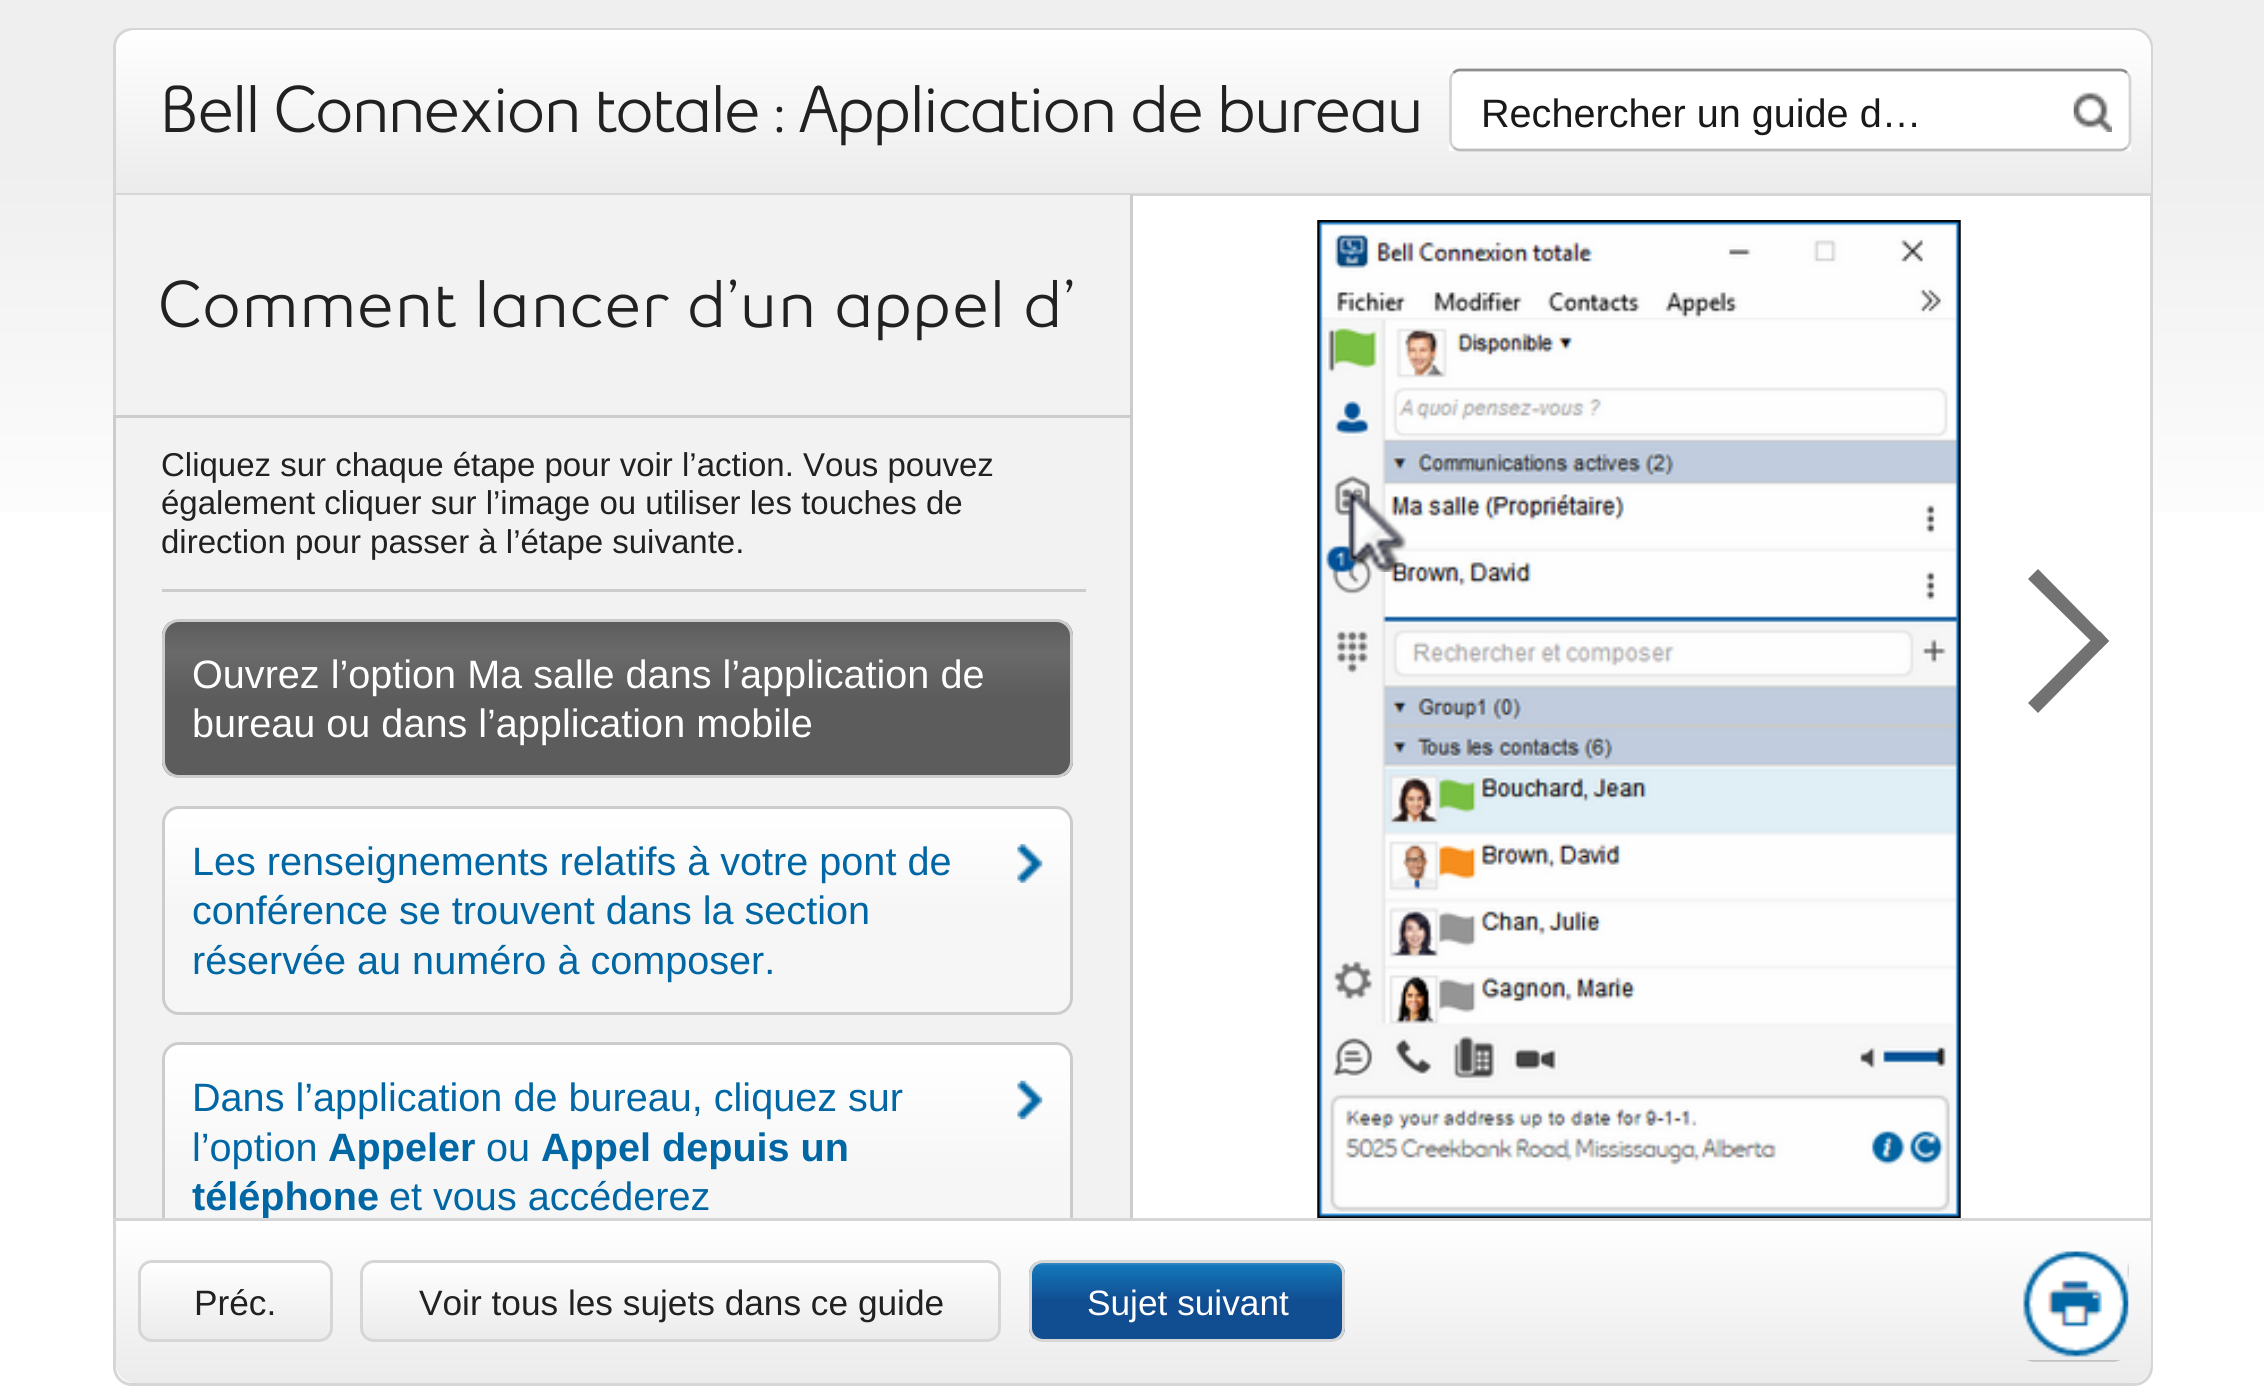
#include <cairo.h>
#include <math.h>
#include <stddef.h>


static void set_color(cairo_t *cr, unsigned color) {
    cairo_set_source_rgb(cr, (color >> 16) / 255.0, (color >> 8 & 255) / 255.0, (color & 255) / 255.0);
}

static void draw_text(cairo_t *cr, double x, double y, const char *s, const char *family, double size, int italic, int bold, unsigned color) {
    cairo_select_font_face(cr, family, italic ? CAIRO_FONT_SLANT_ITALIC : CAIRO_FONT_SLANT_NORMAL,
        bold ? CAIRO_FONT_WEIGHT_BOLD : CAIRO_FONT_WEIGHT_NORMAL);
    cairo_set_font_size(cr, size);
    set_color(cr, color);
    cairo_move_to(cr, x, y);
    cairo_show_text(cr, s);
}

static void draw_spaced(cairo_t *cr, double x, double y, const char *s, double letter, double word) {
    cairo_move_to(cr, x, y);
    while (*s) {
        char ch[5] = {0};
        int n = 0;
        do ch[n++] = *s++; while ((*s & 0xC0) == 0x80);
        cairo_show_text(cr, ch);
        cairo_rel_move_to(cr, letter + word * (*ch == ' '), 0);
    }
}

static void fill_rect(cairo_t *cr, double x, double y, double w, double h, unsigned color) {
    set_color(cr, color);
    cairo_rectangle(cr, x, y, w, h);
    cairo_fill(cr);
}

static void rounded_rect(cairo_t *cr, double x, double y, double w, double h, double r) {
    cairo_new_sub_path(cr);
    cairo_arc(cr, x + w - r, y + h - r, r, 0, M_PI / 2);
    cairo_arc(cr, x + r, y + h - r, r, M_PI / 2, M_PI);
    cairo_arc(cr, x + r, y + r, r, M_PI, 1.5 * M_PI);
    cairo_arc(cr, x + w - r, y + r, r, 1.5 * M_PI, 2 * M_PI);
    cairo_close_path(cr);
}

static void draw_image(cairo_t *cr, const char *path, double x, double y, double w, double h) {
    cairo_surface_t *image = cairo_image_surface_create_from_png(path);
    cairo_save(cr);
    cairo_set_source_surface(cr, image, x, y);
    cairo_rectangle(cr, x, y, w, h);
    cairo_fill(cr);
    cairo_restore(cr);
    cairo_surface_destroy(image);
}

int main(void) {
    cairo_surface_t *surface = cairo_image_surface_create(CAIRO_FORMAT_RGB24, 2264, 1399);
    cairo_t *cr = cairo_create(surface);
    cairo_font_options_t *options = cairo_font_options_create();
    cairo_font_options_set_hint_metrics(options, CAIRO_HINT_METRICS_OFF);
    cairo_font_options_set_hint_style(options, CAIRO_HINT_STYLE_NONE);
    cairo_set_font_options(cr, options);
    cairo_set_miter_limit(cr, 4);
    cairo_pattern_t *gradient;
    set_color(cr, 0xFFFFFF);
    cairo_paint(cr);
    gradient = cairo_pattern_create_linear(1133, 0, 1133, 1386);
    cairo_pattern_add_color_stop_rgba(gradient, 0.1, 0.937, 0.937, 0.937, 1);
    cairo_pattern_add_color_stop_rgba(gradient, 0.4, 1, 1, 1, 1);
    cairo_set_source(cr, gradient);
    cairo_pattern_destroy(gradient);
    cairo_rectangle(cr, 0, 0, 2264, 28);
    cairo_fill(cr);
    gradient = cairo_pattern_create_linear(1133, 27, 1133, 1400);
    cairo_pattern_add_color_stop_rgba(gradient, 0.1, 0.937, 0.937, 0.937, 1);
    cairo_pattern_add_color_stop_rgba(gradient, 0.4, 1, 1, 1, 1);
    cairo_set_source(cr, gradient);
    cairo_pattern_destroy(gradient);
    cairo_rectangle(cr, 0, 28, 2264, 484);
    cairo_fill(cr);
    set_color(cr, 0xFFFFFF);
    rounded_rect(cr, 114.5, 29.5, 2037, 1355, 17.5);
    cairo_fill_preserve(cr);
    set_color(cr, 0xD6D6D6);
    cairo_set_line_width(cr, 3);
    cairo_stroke(cr);
    gradient = cairo_pattern_create_linear(1133, 30, 1133, 193);
    cairo_pattern_add_color_stop_rgba(gradient, 0, 1, 1, 1, 1);
    cairo_pattern_add_color_stop_rgba(gradient, 1, 0.922, 0.922, 0.922, 1);
    cairo_set_source(cr, gradient);
    cairo_pattern_destroy(gradient);
    cairo_new_path(cr);
    cairo_move_to(cr, 135, 30);
    cairo_line_to(cr, 2132, 30);
    cairo_curve_to(cr, 2142.5, 30, 2151, 38.5, 2151, 49);
    cairo_line_to(cr, 2151, 193);
    cairo_line_to(cr, 116, 193);
    cairo_line_to(cr, 116, 49);
    cairo_curve_to(cr, 116, 38.5, 124.5, 30, 135, 30);
    cairo_close_path(cr);
    cairo_fill(cr);
    fill_rect(cr, 116, 193, 2035, 3, 0xD6D6D6);
    cairo_select_font_face(cr, "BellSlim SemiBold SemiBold", CAIRO_FONT_SLANT_NORMAL, CAIRO_FONT_WEIGHT_NORMAL);
    cairo_set_font_size(cr, 66);
    set_color(cr, 0x212121);
    draw_spaced(cr, 159, 132, "Bell Connexion totale : Application de bureau", -2.75, 0);
    fill_rect(cr, 1449, 69, 682, 82, 0xFFFFFF);
    cairo_new_path(cr);
    cairo_move_to(cr, 1453.5, 73);
    cairo_curve_to(cr, 1455, 71, 1457.5, 70, 1460, 70);
    cairo_line_to(cr, 2120, 70);
    cairo_curve_to(cr, 2123, 70, 2125.5, 71, 2127, 73);
    set_color(cr, 0x8E8E8E);
    cairo_set_line_width(cr, 2.8);
    cairo_stroke(cr);
    cairo_new_path(cr);
    cairo_move_to(cr, 2127, 73);
    cairo_curve_to(cr, 2129, 74.5, 2130, 77, 2130, 80);
    cairo_line_to(cr, 2130, 140);
    cairo_curve_to(cr, 2130, 143, 2129, 145.5, 2127, 147);
    set_color(cr, 0xD4D4D4);
    cairo_stroke(cr);
    cairo_new_path(cr);
    cairo_move_to(cr, 2127, 147);
    cairo_curve_to(cr, 2125.5, 149, 2123, 150, 2120, 150);
    cairo_line_to(cr, 1460, 150);
    cairo_curve_to(cr, 1457.5, 150, 1455, 149, 1453.5, 147);
    set_color(cr, 0xBDBDBD);
    cairo_stroke(cr);
    cairo_new_path(cr);
    cairo_move_to(cr, 1453.5, 147);
    cairo_curve_to(cr, 1451.5, 145.5, 1450.5, 143, 1450.5, 140);
    cairo_line_to(cr, 1450.5, 80);
    cairo_curve_to(cr, 1450.5, 77, 1451.5, 74.5, 1453.5, 73);
    set_color(cr, 0xD4D4D4);
    cairo_stroke(cr);
    draw_text(cr, 1481, 127, "Rechercher un guide d…", "Liberation Sans", 39.6, 0, 0, 0x191919);
    draw_image(cr, "assets/img1.png", 2073, 92, 39, 40);
    fill_rect(cr, 116, 195, 1014, 220, 0xF2F2F2);
    fill_rect(cr, 1130, 195, 3, 220, 0xCCCCCC);
    draw_text(cr, 157, 327, "Comment lancer d’un appel d’", "BellSlim SemiBold SemiBold", 66, 0, 0, 0x212121);
    fill_rect(cr, 116, 418, 1014, 800, 0xF2F2F2);
    fill_rect(cr, 113, 415, 1020, 3, 0xCCCCCC);
    fill_rect(cr, 1130, 415, 3, 803, 0xCCCCCC);
    fill_rect(cr, 113, 415, 3, 803, 0xCCCCCC);
    fill_rect(cr, 162, 589, 924, 3, 0xCCCCCC);
    draw_text(cr, 161, 476, "Cliquez sur chaque étape pour voir l’action. Vous pouvez", "Liberation Sans", 33, 0, 0, 0x212121);
    draw_text(cr, 161, 514, "également cliquer sur l’image ou utiliser les touches de", "Liberation Sans", 33, 0, 0, 0x212121);
    draw_text(cr, 161, 553, "direction pour passer à l’étape suivante.", "Liberation Sans", 33, 0, 0, 0x212121);
    cairo_save(cr);
    rounded_rect(cr, 162, 619, 911, 159, 17);
    cairo_clip(cr);
    gradient = cairo_pattern_create_linear(617, 621, 617, 776);
    cairo_pattern_add_color_stop_rgba(gradient, 0, 0.361, 0.361, 0.361, 1);
    cairo_pattern_add_color_stop_rgba(gradient, 0.2, 0.416, 0.416, 0.416, 1);
    cairo_pattern_add_color_stop_rgba(gradient, 0.5, 0.361, 0.361, 0.361, 1);
    cairo_set_source(cr, gradient);
    cairo_pattern_destroy(gradient);
    cairo_rectangle(cr, 162, 622, 911, 154);
    cairo_fill(cr);
    cairo_restore(cr);
    rounded_rect(cr, 163.5, 620.5, 908, 156, 15.5);
    set_color(cr, 0xCCCCCC);
    cairo_set_line_width(cr, 3);
    cairo_stroke(cr);
    draw_text(cr, 192, 688, "Ouvrez l’option Ma salle dans l’application de", "Liberation Sans", 39.6, 0, 0, 0xFFFFFF);
    draw_text(cr, 192, 737, "bureau ou dans l’application mobile", "Liberation Sans", 39.6, 0, 0, 0xFFFFFF);
    cairo_save(cr);
    rounded_rect(cr, 162, 806, 911, 209, 17);
    cairo_clip(cr);
    gradient = cairo_pattern_create_linear(617, 809, 617, 1012);
    cairo_pattern_add_color_stop_rgba(gradient, 0, 1, 1, 1, 1);
    cairo_pattern_add_color_stop_rgba(gradient, 0.2, 0.988, 0.988, 0.988, 1);
    cairo_pattern_add_color_stop_rgba(gradient, 0.5, 0.965, 0.965, 0.965, 1);
    cairo_set_source(cr, gradient);
    cairo_pattern_destroy(gradient);
    cairo_rectangle(cr, 162, 809, 911, 203);
    cairo_fill(cr);
    cairo_restore(cr);
    rounded_rect(cr, 163.5, 807.5, 908, 206, 15.5);
    set_color(cr, 0xCCCCCC);
    cairo_stroke(cr);
    draw_text(cr, 192, 875, "Les renseignements relatifs à votre pont de", "Liberation Sans", 39.6, 0, 0, 0x0066A4);
    draw_image(cr, "assets/img2.png", 1017, 844, 26, 39);
    draw_text(cr, 192, 924, "conférence se trouvent dans la section", "Liberation Sans", 39.6, 0, 0, 0x0066A4);
    draw_text(cr, 192, 974, "réservée au numéro à composer.", "Liberation Sans", 39.6, 0, 0, 0x0066A4);
    cairo_save(cr);
    rounded_rect(cr, 162, 1042, 911, 259, 17);
    cairo_clip(cr);
    gradient = cairo_pattern_create_linear(617, 1045, 617, 1298);
    cairo_pattern_add_color_stop_rgba(gradient, 0, 1, 1, 1, 1);
    cairo_pattern_add_color_stop_rgba(gradient, 0.2, 0.988, 0.988, 0.988, 1);
    cairo_pattern_add_color_stop_rgba(gradient, 0.5, 0.965, 0.965, 0.965, 1);
    cairo_set_source(cr, gradient);
    cairo_pattern_destroy(gradient);
    cairo_rectangle(cr, 162, 1045, 911, 173);
    cairo_fill(cr);
    cairo_restore(cr);
    rounded_rect(cr, 163.5, 1043.5, 908, 256, 15.5);
    set_color(cr, 0xCCCCCC);
    cairo_stroke(cr);
    draw_text(cr, 192, 1111, "Dans l’application de bureau, cliquez sur", "Liberation Sans", 39.6, 0, 0, 0x0066A4);
    draw_image(cr, "assets/img3.png", 1017, 1080, 26, 40);
    draw_text(cr, 192, 1161, "l’option", "Liberation Sans", 39.6, 0, 0, 0x0066A4);
    draw_text(cr, 328, 1161, "Appeler", "Liberation Sans", 39.6, 0, 1, 0x0066A4);
    draw_text(cr, 486, 1161, "ou", "Liberation Sans", 39.6, 0, 0, 0x0066A4);
    draw_text(cr, 541, 1161, "Appel depuis un", "Liberation Sans", 39.6, 0, 1, 0x0066A4);
    draw_text(cr, 192, 1210, "téléphone", "Liberation Sans", 39.6, 0, 1, 0x0066A4);
    draw_text(cr, 389, 1210, "et vous accéderez", "Liberation Sans", 39.6, 0, 0, 0x0066A4);
    draw_image(cr, "assets/img4.png", 1317, 220, 644, 998);
    draw_image(cr, "assets/img5.png", 1348, 490, 59, 82);
    set_color(cr, 0x727272);
    cairo_new_path(cr);
    cairo_move_to(cr, 2038, 569);
    cairo_line_to(cr, 2109, 641);
    cairo_line_to(cr, 2100, 650);
    cairo_line_to(cr, 2028, 579);
    cairo_close_path(cr);
    cairo_fill(cr);
    cairo_new_path(cr);
    cairo_move_to(cr, 2100, 631);
    cairo_line_to(cr, 2109, 641);
    cairo_line_to(cr, 2038, 713);
    cairo_line_to(cr, 2028, 703);
    cairo_close_path(cr);
    cairo_fill(cr);
    gradient = cairo_pattern_create_linear(1133, 1221, 1133, 1383);
    cairo_pattern_add_color_stop_rgba(gradient, 0, 1, 1, 1, 1);
    cairo_pattern_add_color_stop_rgba(gradient, 1, 0.922, 0.922, 0.922, 1);
    cairo_set_source(cr, gradient);
    cairo_pattern_destroy(gradient);
    cairo_new_path(cr);
    cairo_move_to(cr, 116, 1221);
    cairo_line_to(cr, 2151, 1221);
    cairo_line_to(cr, 2151, 1364);
    cairo_curve_to(cr, 2151, 1374.5, 2142.5, 1383, 2132, 1383);
    cairo_line_to(cr, 135, 1383);
    cairo_curve_to(cr, 124.5, 1383, 116, 1374.5, 116, 1364);
    cairo_close_path(cr);
    cairo_fill(cr);
    fill_rect(cr, 116, 1218, 2035, 3, 0xD6D6D6);
    cairo_save(cr);
    rounded_rect(cr, 138, 1260, 195, 82, 14);
    cairo_clip(cr);
    gradient = cairo_pattern_create_linear(235, 1262, 235, 1339);
    cairo_pattern_add_color_stop_rgba(gradient, 0, 1, 1, 1, 1);
    cairo_pattern_add_color_stop_rgba(gradient, 1, 0.922, 0.922, 0.922, 1);
    cairo_set_source(cr, gradient);
    cairo_pattern_destroy(gradient);
    cairo_rectangle(cr, 138, 1262, 195, 77);
    cairo_fill(cr);
    cairo_restore(cr);
    rounded_rect(cr, 139.5, 1261.5, 192, 79, 12.5);
    cairo_stroke(cr);
    draw_text(cr, 194, 1315, "Préc.", "Liberation Sans", 35.25, 0, 0, 0x212121);
    cairo_save(cr);
    rounded_rect(cr, 360, 1260, 641, 82, 14);
    cairo_clip(cr);
    gradient = cairo_pattern_create_linear(681, 1262, 681, 1339);
    cairo_pattern_add_color_stop_rgba(gradient, 0, 1, 1, 1, 1);
    cairo_pattern_add_color_stop_rgba(gradient, 1, 0.922, 0.922, 0.922, 1);
    cairo_set_source(cr, gradient);
    cairo_pattern_destroy(gradient);
    cairo_rectangle(cr, 360, 1262, 641, 77);
    cairo_fill(cr);
    cairo_restore(cr);
    rounded_rect(cr, 361.5, 1261.5, 638, 79, 12.5);
    set_color(cr, 0xD6D6D6);
    cairo_stroke(cr);
    draw_text(cr, 419, 1315, "Voir tous les sujets dans ce guide", "Liberation Sans", 35.25, 0, 0, 0x212121);
    cairo_save(cr);
    rounded_rect(cr, 1029, 1260, 316, 82, 14);
    cairo_clip(cr);
    gradient = cairo_pattern_create_linear(1187, 1262, 1187, 1339);
    cairo_pattern_add_color_stop_rgba(gradient, 0, 0.286, 0.592, 0.8, 1);
    cairo_pattern_add_color_stop_rgba(gradient, 0.05, 0.075, 0.463, 0.729, 1);
    cairo_pattern_add_color_stop_rgba(gradient, 0.5, 0.067, 0.306, 0.569, 1);
    cairo_set_source(cr, gradient);
    cairo_pattern_destroy(gradient);
    cairo_rectangle(cr, 1029, 1262, 316, 77);
    cairo_fill(cr);
    cairo_restore(cr);
    rounded_rect(cr, 1030.5, 1261.5, 313, 79, 12.5);
    set_color(cr, 0xD6D6D6);
    cairo_stroke(cr);
    draw_text(cr, 1087, 1315, "Sujet suivant", "Liberation Sans", 35.25, 0, 0, 0xFFFFFF);
    draw_image(cr, "assets/img6.png", 2023, 1251, 106, 111);
    cairo_surface_write_to_png(surface, "output.png");
    cairo_font_options_destroy(options);
    cairo_destroy(cr);
    cairo_surface_destroy(surface);
    return 0;
}
